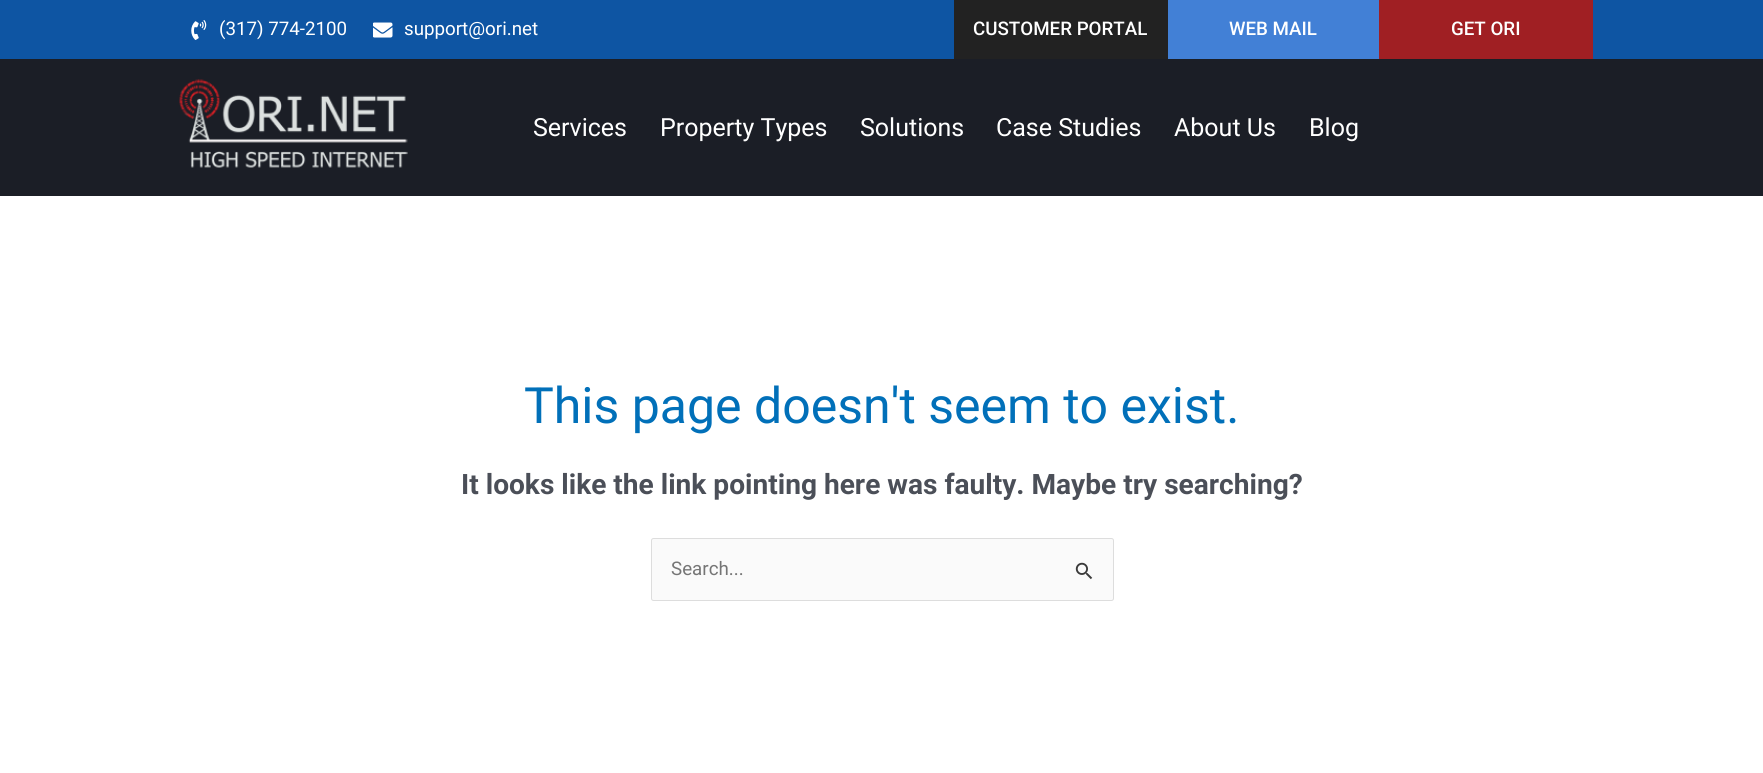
#include <cairo.h>
#include <math.h>
#include <stddef.h>


static void set_color(cairo_t *cr, unsigned color) {
    cairo_set_source_rgb(cr, (color >> 16) / 255.0, (color >> 8 & 255) / 255.0, (color & 255) / 255.0);
}

static void draw_text(cairo_t *cr, double x, double y, const char *s, const char *family, double size, int italic, int bold, unsigned color) {
    cairo_select_font_face(cr, family, italic ? CAIRO_FONT_SLANT_ITALIC : CAIRO_FONT_SLANT_NORMAL,
        bold ? CAIRO_FONT_WEIGHT_BOLD : CAIRO_FONT_WEIGHT_NORMAL);
    cairo_set_font_size(cr, size);
    set_color(cr, color);
    cairo_move_to(cr, x, y);
    cairo_show_text(cr, s);
}

static void fill_rect(cairo_t *cr, double x, double y, double w, double h, unsigned color) {
    set_color(cr, color);
    cairo_rectangle(cr, x, y, w, h);
    cairo_fill(cr);
}

static void rounded_rect(cairo_t *cr, double x, double y, double w, double h, double r) {
    cairo_new_sub_path(cr);
    cairo_arc(cr, x + w - r, y + h - r, r, 0, M_PI / 2);
    cairo_arc(cr, x + r, y + h - r, r, M_PI / 2, M_PI);
    cairo_arc(cr, x + r, y + r, r, M_PI, 1.5 * M_PI);
    cairo_arc(cr, x + w - r, y + r, r, 1.5 * M_PI, 2 * M_PI);
    cairo_close_path(cr);
}

static void draw_image(cairo_t *cr, const char *path, double x, double y, double w, double h) {
    cairo_surface_t *image = cairo_image_surface_create_from_png(path);
    cairo_save(cr);
    cairo_set_source_surface(cr, image, x, y);
    cairo_rectangle(cr, x, y, w, h);
    cairo_fill(cr);
    cairo_restore(cr);
    cairo_surface_destroy(image);
}

int main(void) {
    cairo_surface_t *surface = cairo_image_surface_create(CAIRO_FORMAT_RGB24, 1763, 773);
    cairo_t *cr = cairo_create(surface);
    cairo_font_options_t *options = cairo_font_options_create();
    cairo_font_options_set_hint_metrics(options, CAIRO_HINT_METRICS_OFF);
    cairo_font_options_set_hint_style(options, CAIRO_HINT_STYLE_NONE);
    cairo_set_font_options(cr, options);
    cairo_set_miter_limit(cr, 4);
    set_color(cr, 0xFFFFFF);
    cairo_paint(cr);
    fill_rect(cr, 0, 0, 1763, 59, 0x0E55A3);
    draw_image(cr, "assets/img1.png", 191, 20, 16, 20);
    draw_text(cr, 219, 35, "(317) 774-2100", "Roboto", 18.75, 0, 0, 0xFFFFFF);
    draw_image(cr, "assets/img2.png", 373, 22, 20, 16);
    draw_text(cr, 404, 35, "support@ori.net", "Roboto", 18.75, 0, 0, 0xFFFFFF);
    fill_rect(cr, 954, 0, 214, 59, 0x222222);
    draw_text(cr, 973, 35, "CUSTOMER PORTAL", "Roboto Medium", 18.75, 0, 0, 0xFFFFFF);
    fill_rect(cr, 1168, 0, 211, 59, 0x4280D6);
    draw_text(cr, 1229, 35, "WEB MAIL", "Roboto Medium", 18.75, 0, 0, 0xFFFFFF);
    fill_rect(cr, 1379, 0, 214, 59, 0xA01F23);
    draw_text(cr, 1451, 35, "GET ORI", "Roboto Medium", 18.75, 0, 0, 0xFFFFFF);
    fill_rect(cr, 0, 59, 1763, 137, 0x1B1E26);
    draw_image(cr, "assets/img3.png", 179, 79, 229, 89);
    draw_text(cr, 533, 136, "Services", "Roboto", 25, 0, 0, 0xFFFFFF);
    draw_text(cr, 660, 136, "Property Types", "Roboto", 25, 0, 0, 0xFFFFFF);
    draw_text(cr, 860, 136, "Solutions", "Roboto", 25, 0, 0, 0xFFFFFF);
    draw_text(cr, 996, 136, "Case Studies", "Roboto", 25, 0, 0, 0xFFFFFF);
    draw_text(cr, 1174, 136, "About Us", "Roboto", 25, 0, 0, 0xFFFFFF);
    draw_text(cr, 1309, 136, "Blog", "Roboto", 25, 0, 0, 0xFFFFFF);
    draw_text(cr, 524, 423, "This page doesn't seem to exist.", "Roboto", 50, 0, 0, 0x0170B9);
    draw_text(cr, 461, 494, "It looks like the link pointing here was faulty. Maybe try searching?", "Roboto", 28.1, 0, 1, 0x4B4F58);
    set_color(cr, 0xFAFAFA);
    rounded_rect(cr, 651.5, 538.5, 462, 62, 2);
    cairo_fill_preserve(cr);
    set_color(cr, 0xDDDDDD);
    cairo_set_line_width(cr, 1);
    cairo_stroke(cr);
    draw_text(cr, 671, 575, "Search...", "Roboto", 18.75, 0, 0, 0x757575);
    draw_image(cr, "assets/img4.png", 1075, 562, 18, 18);
    cairo_surface_write_to_png(surface, "output.png");
    cairo_font_options_destroy(options);
    cairo_destroy(cr);
    cairo_surface_destroy(surface);
    return 0;
}
